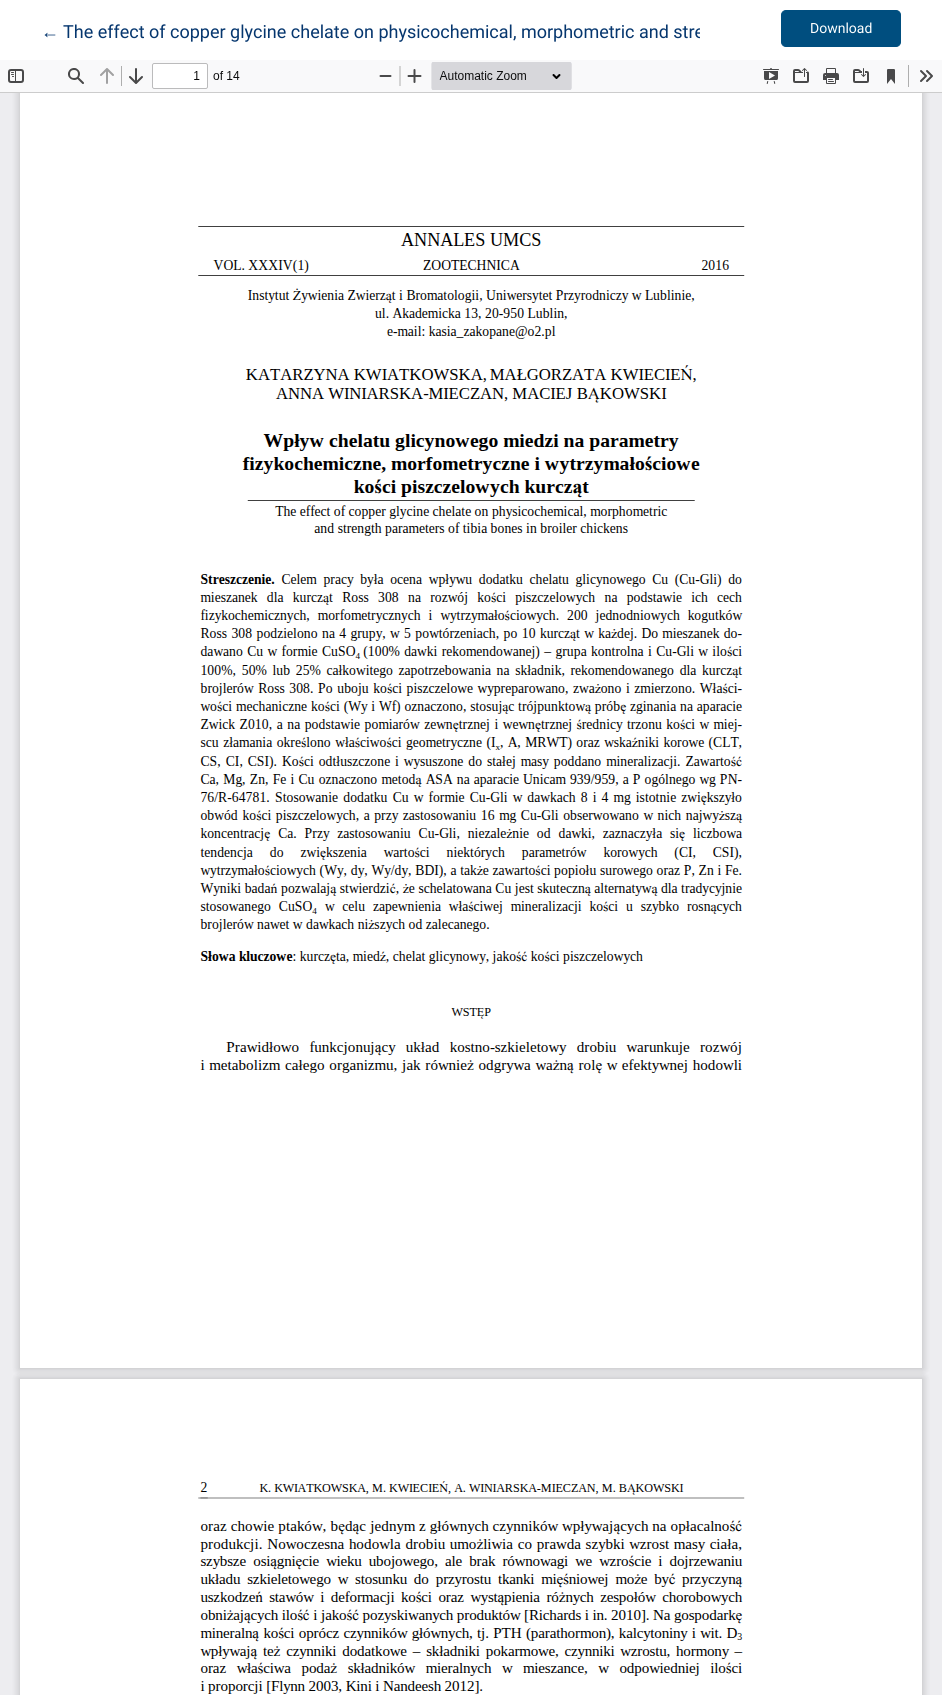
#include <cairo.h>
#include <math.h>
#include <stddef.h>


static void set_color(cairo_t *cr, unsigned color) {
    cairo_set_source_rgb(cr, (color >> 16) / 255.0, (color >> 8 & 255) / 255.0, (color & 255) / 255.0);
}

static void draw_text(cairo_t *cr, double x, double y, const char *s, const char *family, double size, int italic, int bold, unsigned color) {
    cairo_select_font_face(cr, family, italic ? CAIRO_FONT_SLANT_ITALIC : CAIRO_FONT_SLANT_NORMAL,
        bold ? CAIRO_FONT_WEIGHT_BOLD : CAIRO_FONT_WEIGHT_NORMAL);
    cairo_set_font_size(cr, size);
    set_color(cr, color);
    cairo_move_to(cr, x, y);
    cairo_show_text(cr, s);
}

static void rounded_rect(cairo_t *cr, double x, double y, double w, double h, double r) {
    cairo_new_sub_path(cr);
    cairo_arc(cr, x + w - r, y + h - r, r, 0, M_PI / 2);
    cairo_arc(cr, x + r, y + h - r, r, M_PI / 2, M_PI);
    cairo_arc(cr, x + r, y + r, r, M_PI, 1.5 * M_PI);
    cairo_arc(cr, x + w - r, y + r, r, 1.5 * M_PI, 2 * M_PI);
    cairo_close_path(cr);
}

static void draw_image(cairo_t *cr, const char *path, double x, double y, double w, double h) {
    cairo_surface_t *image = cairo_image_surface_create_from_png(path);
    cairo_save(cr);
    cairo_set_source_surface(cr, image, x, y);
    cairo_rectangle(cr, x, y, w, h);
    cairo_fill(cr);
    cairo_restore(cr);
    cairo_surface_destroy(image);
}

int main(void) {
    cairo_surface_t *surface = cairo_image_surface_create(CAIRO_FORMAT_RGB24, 942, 1695);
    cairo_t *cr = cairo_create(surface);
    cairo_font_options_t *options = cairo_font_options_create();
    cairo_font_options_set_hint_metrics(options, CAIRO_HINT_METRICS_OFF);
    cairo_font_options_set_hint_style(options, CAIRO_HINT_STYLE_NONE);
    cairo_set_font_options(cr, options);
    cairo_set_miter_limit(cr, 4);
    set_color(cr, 0xFFFFFF);
    cairo_paint(cr);
    draw_text(cr, 41, 38, "←", "Liberation Sans", 18, 0, 0, 0x05366E);
    cairo_save(cr);
    cairo_rectangle(cr, 41, 10, 659, 37);
    cairo_clip(cr);
    draw_text(cr, 63, 38, "The effect of copper glycine chelate on physicochemical, morphometric and stre", "Roboto", 18, 0, 0, 0x05366E);
    cairo_restore(cr);
    set_color(cr, 0x004E7F);
    rounded_rect(cr, 781.5, 10.5, 119, 36, 4.5);
    cairo_fill_preserve(cr);
    cairo_set_line_width(cr, 1);
    cairo_stroke(cr);
    draw_text(cr, 810, 33, "Download", "Roboto", 14, 0, 0, 0xFFFFFF);
    draw_image(cr, "assets/img1.png", 0, 60, 942, 1635);
    cairo_surface_write_to_png(surface, "output.png");
    cairo_font_options_destroy(options);
    cairo_destroy(cr);
    cairo_surface_destroy(surface);
    return 0;
}
